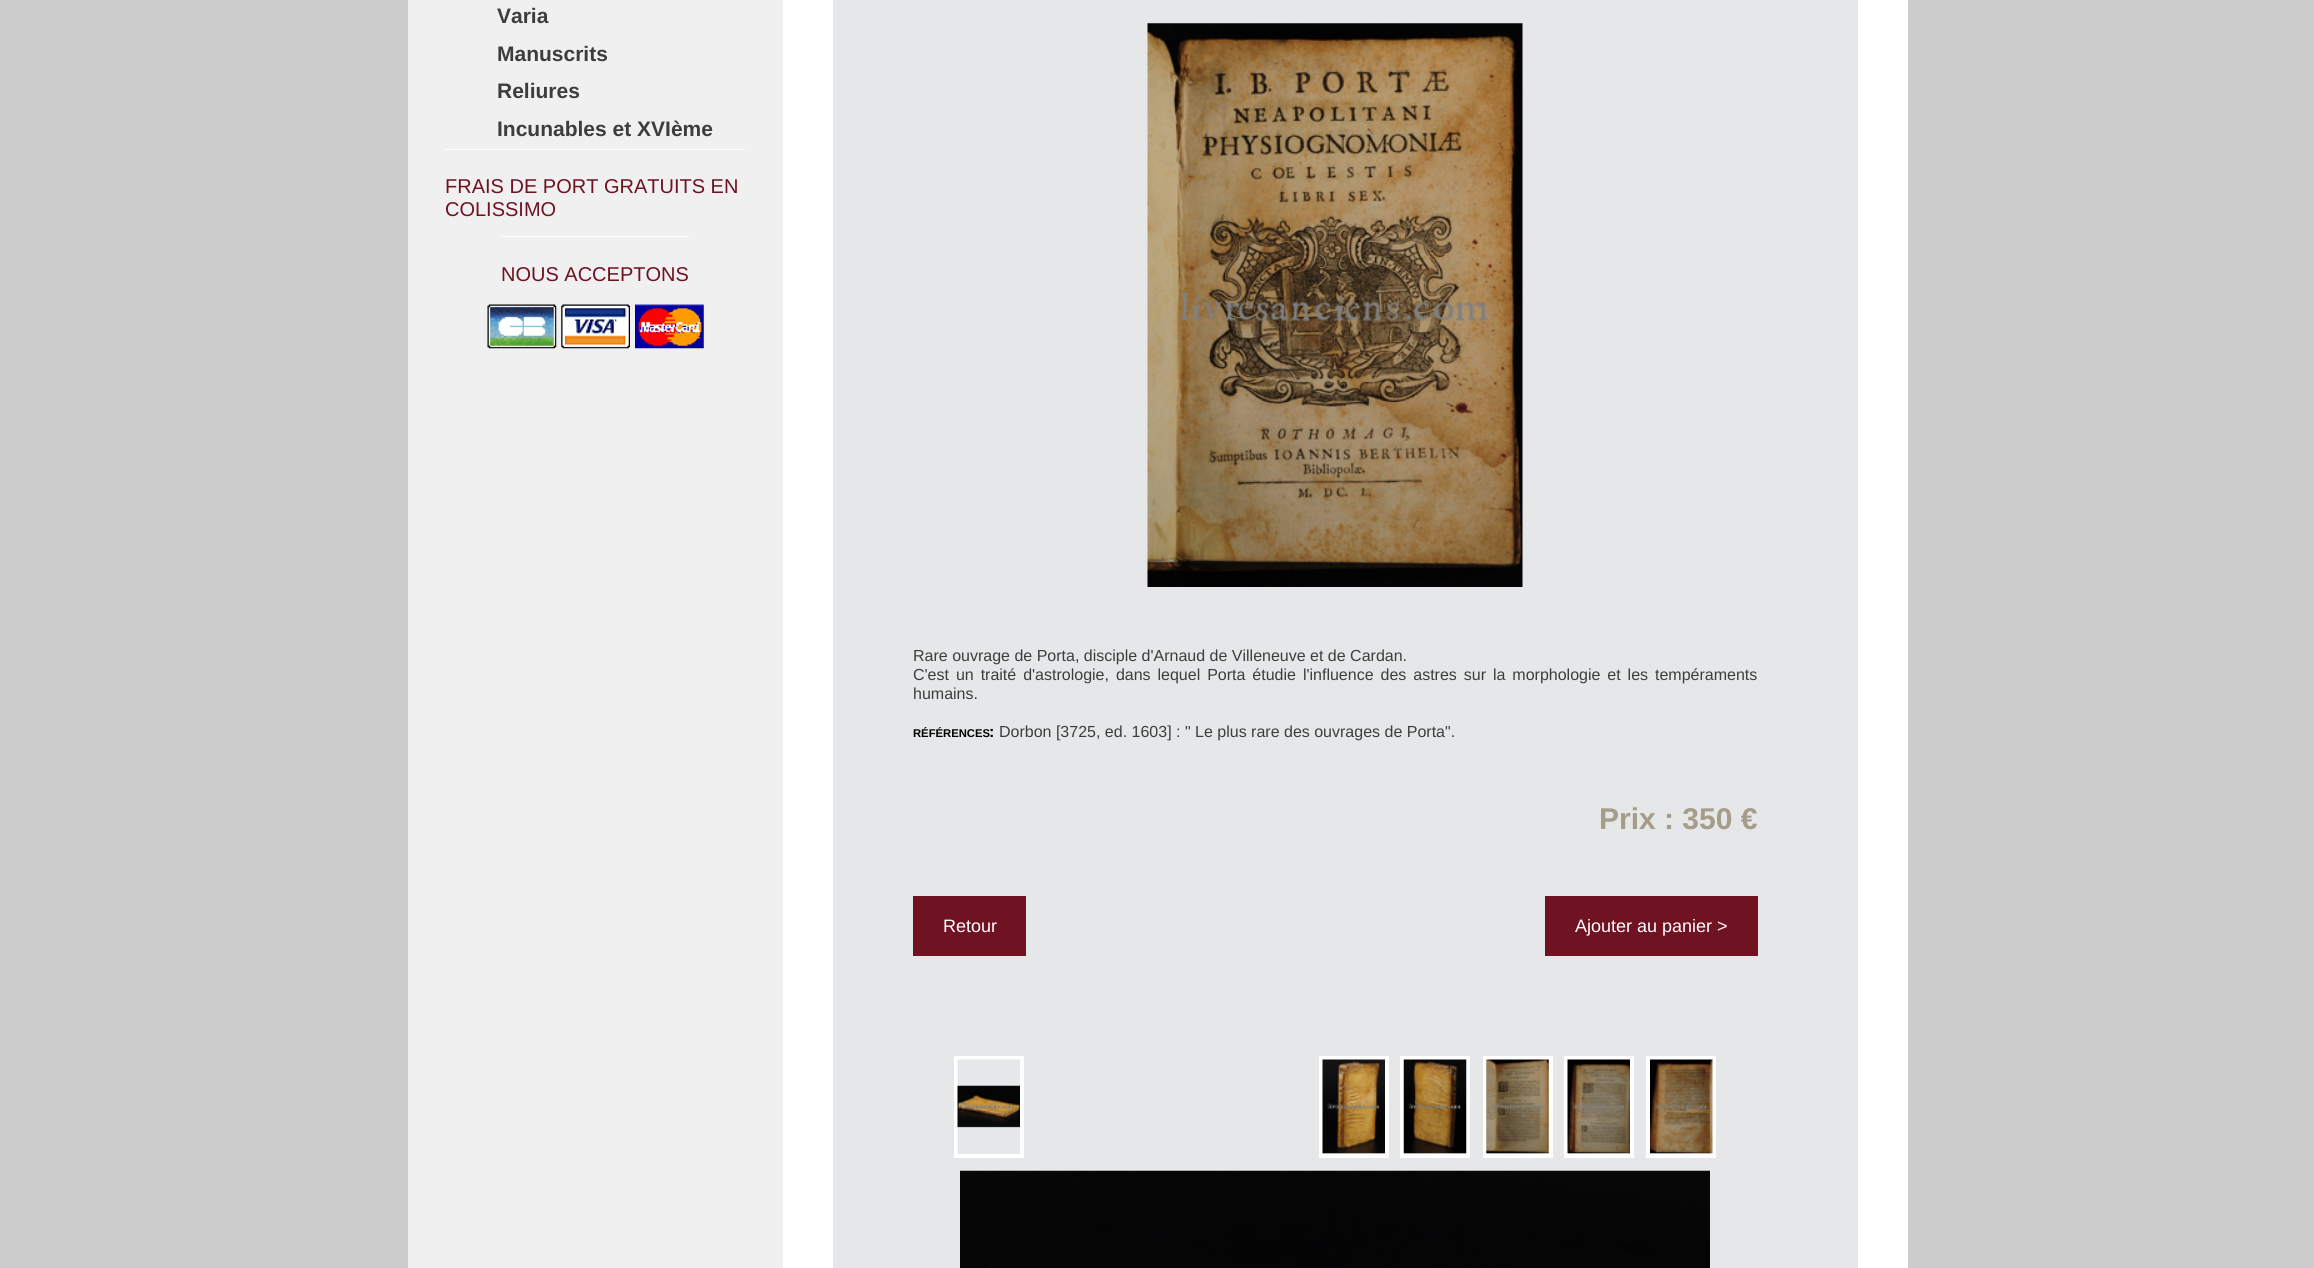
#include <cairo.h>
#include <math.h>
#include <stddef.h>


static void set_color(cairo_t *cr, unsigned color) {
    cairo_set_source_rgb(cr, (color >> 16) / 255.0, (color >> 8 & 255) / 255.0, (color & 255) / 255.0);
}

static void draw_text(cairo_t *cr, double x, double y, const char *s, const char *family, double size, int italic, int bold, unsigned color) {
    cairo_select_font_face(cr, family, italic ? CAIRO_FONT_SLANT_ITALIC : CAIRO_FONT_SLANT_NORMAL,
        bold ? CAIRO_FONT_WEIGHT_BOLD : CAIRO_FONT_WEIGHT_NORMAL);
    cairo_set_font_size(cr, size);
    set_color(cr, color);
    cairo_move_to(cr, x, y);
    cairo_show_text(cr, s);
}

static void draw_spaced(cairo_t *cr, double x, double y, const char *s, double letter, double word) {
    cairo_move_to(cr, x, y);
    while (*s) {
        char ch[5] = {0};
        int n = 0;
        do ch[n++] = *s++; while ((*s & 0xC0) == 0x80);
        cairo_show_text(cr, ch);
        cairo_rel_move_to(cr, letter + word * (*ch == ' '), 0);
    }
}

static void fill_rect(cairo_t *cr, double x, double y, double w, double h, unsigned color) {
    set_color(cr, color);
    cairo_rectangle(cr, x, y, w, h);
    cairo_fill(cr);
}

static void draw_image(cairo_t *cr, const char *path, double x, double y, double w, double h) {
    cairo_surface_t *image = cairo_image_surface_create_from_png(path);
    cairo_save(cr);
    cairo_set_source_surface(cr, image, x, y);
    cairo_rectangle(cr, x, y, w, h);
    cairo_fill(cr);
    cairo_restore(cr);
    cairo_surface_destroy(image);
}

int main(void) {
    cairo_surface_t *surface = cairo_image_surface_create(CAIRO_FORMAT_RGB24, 2314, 1268);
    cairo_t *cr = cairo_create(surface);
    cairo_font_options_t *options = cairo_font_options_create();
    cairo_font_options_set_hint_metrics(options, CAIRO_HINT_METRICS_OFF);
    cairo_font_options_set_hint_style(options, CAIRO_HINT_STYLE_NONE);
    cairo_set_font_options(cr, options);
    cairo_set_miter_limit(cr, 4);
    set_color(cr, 0xCCCCCC);
    cairo_paint(cr);
    fill_rect(cr, 783, 0, 1125, 1268, 0xFFFFFF);
    fill_rect(cr, 408, 0, 375, 1268, 0xF0F0F0);
    draw_text(cr, 497, 23, "Varia", "Liberation Sans", 21, 0, 1, 0x3D3D3D);
    draw_text(cr, 497, 61, "Manuscrits", "Liberation Sans", 21, 0, 1, 0x3D3D3D);
    draw_text(cr, 497, 98, "Reliures", "Liberation Sans", 21, 0, 1, 0x3D3D3D);
    draw_text(cr, 497, 136, "Incunables et XVIème", "Liberation Sans", 21, 0, 1, 0x3D3D3D);
    fill_rect(cr, 445, 149, 300, 1, 0xFFFFFF);
    draw_text(cr, 445, 193, "FRAIS DE PORT GRATUITS EN", "Liberation Sans", 20, 0, 0, 0x6F1222);
    draw_text(cr, 445, 216, "COLISSIMO", "Liberation Sans", 20, 0, 0, 0x6F1222);
    fill_rect(cr, 501, 236, 188, 1, 0xFFFFFF);
    draw_text(cr, 501, 281, "NOUS ACCEPTONS", "Liberation Sans", 20, 0, 0, 0x6F1222);
    draw_image(cr, "assets/img1.png", 487, 304, 70, 45);
    draw_image(cr, "assets/img2.png", 561, 304, 69, 45);
    draw_image(cr, "assets/img3.png", 635, 304, 69, 45);
    fill_rect(cr, 833, 0, 1025, 1268, 0xE6E7E8);
    draw_image(cr, "assets/img4.png", 1147, 23, 376, 564);
    draw_text(cr, 913, 661, "Rare ouvrage de Porta, disciple d'Arnaud de Villeneuve et de Cardan.", "Liberation Sans", 16, 0, 0, 0x3D3D3D);
    draw_spaced(cr, 913, 680, "C'est un traité d'astrologie, dans lequel Porta étudie l'influence des astres sur la morphologie et les tempéraments", 0, 2.5);
    draw_text(cr, 913, 699, "humains.", "Liberation Sans", 16, 0, 0, 0x3D3D3D);
    draw_text(cr, 913, 737, "RÉFÉRENCES", "Liberation Sans", 11.25, 0, 1, 0x000000);
    draw_text(cr, 989, 737, ":", "Liberation Sans", 16, 0, 1, 0x000000);
    draw_text(cr, 999, 737, "Dorbon [3725, ed. 1603] : \" Le plus rare des ouvrages de Porta\".", "Liberation Sans", 16, 0, 0, 0x3D3D3D);
    draw_text(cr, 1599, 829, "Prix : 350 €", "Liberation Sans", 30, 0, 1, 0xA59C89);
    fill_rect(cr, 913, 896, 113, 60, 0x6F1222);
    draw_text(cr, 943, 932, "Retour", "Liberation Sans", 18, 0, 0, 0xFFFFFF);
    fill_rect(cr, 1545, 896, 213, 60, 0x6F1222);
    draw_text(cr, 1575, 932, "Ajouter au panier >", "Liberation Sans", 18, 0, 0, 0xFFFFFF);
    cairo_rectangle(cr, 956, 1058, 66, 98);
    cairo_set_line_width(cr, 4);
    cairo_stroke(cr);
    cairo_rectangle(cr, 1321, 1058, 66, 98);
    cairo_stroke(cr);
    cairo_rectangle(cr, 1402, 1058, 66, 98);
    cairo_stroke(cr);
    cairo_rectangle(cr, 1485, 1058, 66, 98);
    cairo_stroke(cr);
    cairo_rectangle(cr, 1566, 1058, 66, 98);
    cairo_stroke(cr);
    cairo_rectangle(cr, 1648, 1058, 66, 98);
    cairo_stroke(cr);
    draw_image(cr, "assets/img5.png", 957, 1059, 63, 94);
    draw_image(cr, "assets/img6.png", 1322, 1059, 63, 95);
    draw_image(cr, "assets/img7.png", 1403, 1059, 64, 95);
    draw_image(cr, "assets/img8.png", 1486, 1059, 63, 95);
    draw_image(cr, "assets/img9.png", 1567, 1059, 63, 95);
    draw_image(cr, "assets/img10.png", 1650, 1059, 63, 95);
    draw_image(cr, "assets/img11.png", 960, 1170, 750, 98);
    cairo_surface_write_to_png(surface, "output.png");
    cairo_font_options_destroy(options);
    cairo_destroy(cr);
    cairo_surface_destroy(surface);
    return 0;
}
